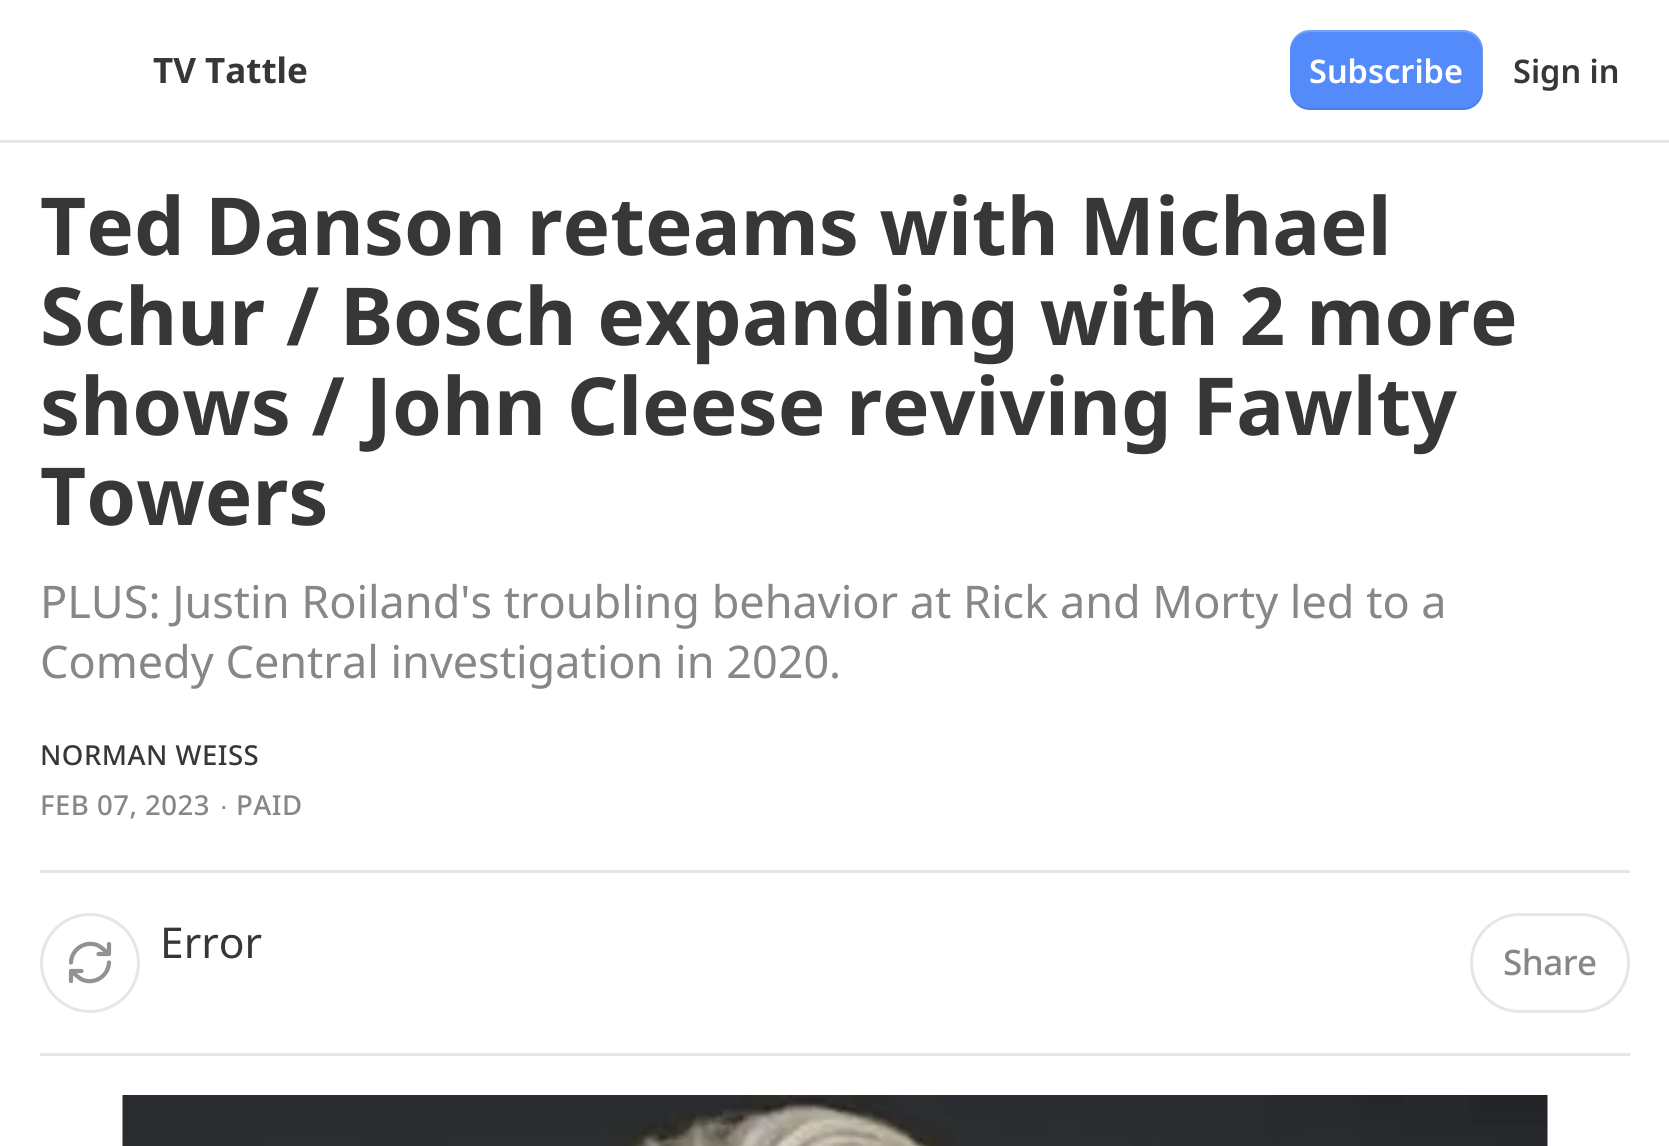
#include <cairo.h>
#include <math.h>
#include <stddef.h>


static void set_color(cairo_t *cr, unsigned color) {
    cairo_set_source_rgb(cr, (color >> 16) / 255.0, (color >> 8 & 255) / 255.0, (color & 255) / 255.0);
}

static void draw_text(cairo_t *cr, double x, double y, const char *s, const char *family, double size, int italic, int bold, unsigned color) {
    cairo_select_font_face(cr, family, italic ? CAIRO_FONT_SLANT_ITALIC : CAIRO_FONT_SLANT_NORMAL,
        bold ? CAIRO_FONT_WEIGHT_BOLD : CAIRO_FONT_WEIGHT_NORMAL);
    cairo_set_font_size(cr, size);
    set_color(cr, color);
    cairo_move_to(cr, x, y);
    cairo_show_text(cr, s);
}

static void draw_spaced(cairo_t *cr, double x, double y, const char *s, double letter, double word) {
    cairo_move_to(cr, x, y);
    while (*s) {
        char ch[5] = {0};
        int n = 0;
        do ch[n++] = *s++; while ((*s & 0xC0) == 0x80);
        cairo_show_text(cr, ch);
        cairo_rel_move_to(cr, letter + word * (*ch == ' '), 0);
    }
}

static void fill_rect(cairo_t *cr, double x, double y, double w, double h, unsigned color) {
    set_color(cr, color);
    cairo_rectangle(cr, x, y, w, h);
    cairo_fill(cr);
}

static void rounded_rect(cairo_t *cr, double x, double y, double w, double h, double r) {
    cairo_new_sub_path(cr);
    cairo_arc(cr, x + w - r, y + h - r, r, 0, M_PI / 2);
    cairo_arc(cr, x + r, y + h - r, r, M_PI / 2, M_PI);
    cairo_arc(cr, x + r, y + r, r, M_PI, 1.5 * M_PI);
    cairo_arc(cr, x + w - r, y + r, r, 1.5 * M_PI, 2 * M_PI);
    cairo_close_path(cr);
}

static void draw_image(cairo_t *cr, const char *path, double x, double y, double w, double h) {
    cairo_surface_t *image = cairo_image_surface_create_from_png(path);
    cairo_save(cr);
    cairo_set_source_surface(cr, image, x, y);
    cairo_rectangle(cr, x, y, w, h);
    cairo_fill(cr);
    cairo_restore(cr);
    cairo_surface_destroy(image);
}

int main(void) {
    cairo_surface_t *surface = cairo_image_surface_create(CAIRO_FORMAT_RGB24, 1669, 1146);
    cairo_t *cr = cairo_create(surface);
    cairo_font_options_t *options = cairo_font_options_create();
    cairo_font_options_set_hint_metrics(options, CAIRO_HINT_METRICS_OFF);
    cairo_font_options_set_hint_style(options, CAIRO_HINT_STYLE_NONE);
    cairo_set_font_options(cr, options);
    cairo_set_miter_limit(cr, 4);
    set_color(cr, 0xFFFFFF);
    cairo_paint(cr);
    fill_rect(cr, 0, 140, 1669, 3, 0xE6E6E6);
    draw_text(cr, 153, 83, "TV Tattle", "Noto Sans", 35, 0, 1, 0x363737);
    set_color(cr, 0x538CFA);
    rounded_rect(cr, 1290, 30, 193, 80, 20);
    cairo_fill(cr);
    cairo_set_source_rgba(cr, 0, 0, 0, 0.1);
    cairo_new_path(cr);
    cairo_move_to(cr, 1290, 88);
    cairo_line_to(cr, 1290, 90);
    cairo_curve_to(cr, 1290, 101, 1299, 110, 1310, 110);
    cairo_line_to(cr, 1463, 110);
    cairo_curve_to(cr, 1474, 110, 1483, 101, 1483, 90);
    cairo_line_to(cr, 1483, 50);
    cairo_curve_to(cr, 1483, 47, 1482, 44, 1481, 42);
    cairo_line_to(cr, 1482, 48);
    cairo_line_to(cr, 1482, 88);
    cairo_curve_to(cr, 1482, 99, 1474, 108, 1462, 108);
    cairo_line_to(cr, 1310, 108);
    cairo_curve_to(cr, 1299, 108, 1290, 99, 1290, 88);
    cairo_close_path(cr);
    cairo_fill(cr);
    cairo_set_source_rgba(cr, 1, 1, 1, 0.2);
    cairo_new_path(cr);
    cairo_move_to(cr, 1310, 32);
    cairo_line_to(cr, 1462, 32);
    cairo_curve_to(cr, 1474, 32, 1482, 41, 1482, 52);
    cairo_line_to(cr, 1482, 92);
    cairo_line_to(cr, 1481, 98);
    cairo_curve_to(cr, 1482, 96, 1483, 93, 1483, 90);
    cairo_line_to(cr, 1483, 50);
    cairo_curve_to(cr, 1483, 39, 1474, 30, 1463, 30);
    cairo_line_to(cr, 1310, 30);
    cairo_curve_to(cr, 1299, 30, 1290, 39, 1290, 50);
    cairo_line_to(cr, 1290, 52);
    cairo_curve_to(cr, 1290, 41, 1299, 32, 1310, 32);
    cairo_close_path(cr);
    cairo_fill(cr);
    draw_text(cr, 1309, 83, "Subscribe", "Noto Sans SemiBold", 32.5, 0, 0, 0xFFFFFF);
    draw_text(cr, 1513, 83, "Sign in", "Noto Sans SemiBold", 32.5, 0, 0, 0x363737);
    draw_text(cr, 40, 255, "Ted Danson reteams with Michael", "Noto Sans", 80, 0, 1, 0x363737);
    draw_text(cr, 40, 345, "Schur / Bosch expanding with 2 more", "Noto Sans", 80, 0, 1, 0x363737);
    draw_text(cr, 40, 435, "shows / John Cleese reviving Fawlty", "Noto Sans", 80, 0, 1, 0x363737);
    draw_text(cr, 40, 525, "Towers", "Noto Sans", 80, 0, 1, 0x363737);
    draw_text(cr, 40, 618, "PLUS: Justin Roiland's troubling behavior at Rick and Morty led to a", "Noto Sans", 45, 0, 0, 0x868787);
    draw_text(cr, 40, 678, "Comedy Central investigation in 2020.", "Noto Sans", 45, 0, 0, 0x868787);
    cairo_select_font_face(cr, "Noto Sans Medium", CAIRO_FONT_SLANT_NORMAL, CAIRO_FONT_WEIGHT_NORMAL);
    cairo_set_font_size(cr, 27.5);
    set_color(cr, 0x363737);
    draw_spaced(cr, 40, 765, "NORMAN WEISS", 0.5, 0);
    set_color(cr, 0x868787);
    draw_spaced(cr, 40, 815, "FEB 07, 2023", 0.5, 0);
    cairo_select_font_face(cr, "Liberation Sans", CAIRO_FONT_SLANT_NORMAL, CAIRO_FONT_WEIGHT_NORMAL);
    draw_spaced(cr, 220, 815, "∙", 0.5, 0);
    cairo_select_font_face(cr, "Noto Sans Medium", CAIRO_FONT_SLANT_NORMAL, CAIRO_FONT_WEIGHT_NORMAL);
    draw_spaced(cr, 236, 815, "PAID", 0.5, 0);
    fill_rect(cr, 40, 870, 1590, 3, 0xE6E6E6);
    fill_rect(cr, 40, 1053, 1590, 3, 0xE6E6E6);
    cairo_new_path(cr);
    cairo_arc(cr, 90, 963, 48.5, 0, 2 * M_PI);
    cairo_set_line_width(cr, 3);
    cairo_stroke(cr);
    cairo_new_path(cr);
    cairo_move_to(cr, 109, 944);
    cairo_line_to(cr, 109, 954);
    cairo_move_to(cr, 109, 954);
    cairo_line_to(cr, 98.5, 954);
    cairo_move_to(cr, 109, 954);
    cairo_curve_to(cr, 105, 951, 101.5, 947, 97, 945);
    cairo_curve_to(cr, 84.5, 940.5, 71.5, 949.5, 71, 962.5);
    cairo_move_to(cr, 71, 981);
    cairo_line_to(cr, 71, 971);
    cairo_move_to(cr, 71, 971);
    cairo_line_to(cr, 81.5, 971);
    cairo_move_to(cr, 71, 971);
    cairo_curve_to(cr, 75, 974, 78.5, 978, 83, 980);
    cairo_curve_to(cr, 95.5, 984.5, 108.5, 975.5, 109, 962.5);
    set_color(cr, 0x929292);
    cairo_set_line_width(cr, 4.2);
    cairo_set_line_cap(cr, CAIRO_LINE_CAP_ROUND);
    cairo_set_line_join(cr, CAIRO_LINE_JOIN_ROUND);
    cairo_stroke(cr);
    draw_text(cr, 160, 958, "Error", "Noto Sans", 42.5, 0, 0, 0x363737);
    rounded_rect(cr, 1471.5, 914.5, 157, 97, 48.5);
    set_color(cr, 0xE6E6E6);
    cairo_set_line_width(cr, 3);
    cairo_set_line_cap(cr, CAIRO_LINE_CAP_BUTT);
    cairo_set_line_join(cr, CAIRO_LINE_JOIN_MITER);
    cairo_stroke(cr);
    cairo_select_font_face(cr, "Noto Sans Medium", CAIRO_FONT_SLANT_NORMAL, CAIRO_FONT_WEIGHT_NORMAL);
    cairo_set_font_size(cr, 35);
    set_color(cr, 0x868787);
    draw_spaced(cr, 1503, 975, "Share", -0.5, 0);
    draw_image(cr, "assets/img1.png", 122, 1095, 1426, 51);
    cairo_surface_write_to_png(surface, "output.png");
    cairo_font_options_destroy(options);
    cairo_destroy(cr);
    cairo_surface_destroy(surface);
    return 0;
}
